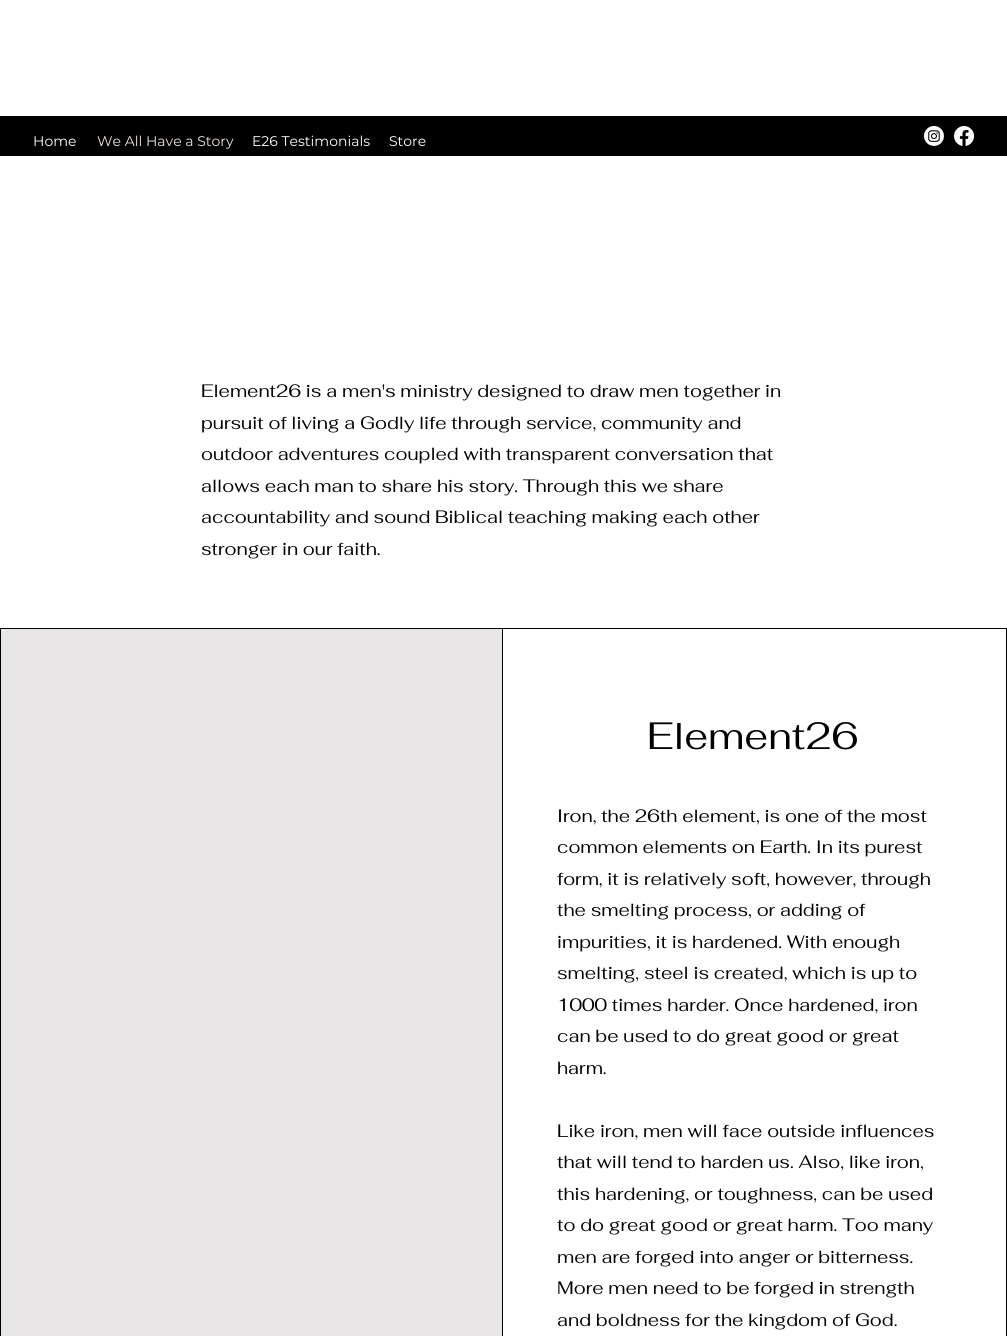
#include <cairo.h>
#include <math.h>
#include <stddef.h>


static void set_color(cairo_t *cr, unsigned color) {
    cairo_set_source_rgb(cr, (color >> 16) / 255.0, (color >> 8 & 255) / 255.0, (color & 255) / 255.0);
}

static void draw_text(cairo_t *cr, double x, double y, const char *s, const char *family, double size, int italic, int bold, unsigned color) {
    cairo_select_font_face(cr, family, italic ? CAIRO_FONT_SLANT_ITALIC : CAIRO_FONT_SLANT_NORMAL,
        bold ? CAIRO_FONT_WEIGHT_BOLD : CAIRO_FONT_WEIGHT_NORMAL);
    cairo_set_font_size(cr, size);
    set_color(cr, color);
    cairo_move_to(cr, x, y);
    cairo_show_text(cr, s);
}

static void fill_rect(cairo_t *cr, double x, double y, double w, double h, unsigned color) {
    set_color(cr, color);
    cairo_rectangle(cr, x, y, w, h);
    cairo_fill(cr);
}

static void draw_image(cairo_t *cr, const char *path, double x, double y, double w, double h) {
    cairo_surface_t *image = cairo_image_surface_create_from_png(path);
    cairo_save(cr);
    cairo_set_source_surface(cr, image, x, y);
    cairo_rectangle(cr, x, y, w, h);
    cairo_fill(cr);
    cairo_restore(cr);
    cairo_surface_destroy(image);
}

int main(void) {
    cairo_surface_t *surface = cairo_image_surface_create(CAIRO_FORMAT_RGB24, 1007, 1336);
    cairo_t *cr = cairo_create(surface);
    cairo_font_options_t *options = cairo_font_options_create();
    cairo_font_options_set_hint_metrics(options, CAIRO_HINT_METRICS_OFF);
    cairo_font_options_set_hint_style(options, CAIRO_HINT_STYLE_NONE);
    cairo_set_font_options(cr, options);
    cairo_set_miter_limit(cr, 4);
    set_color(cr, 0xFFFFFF);
    cairo_paint(cr);
    fill_rect(cr, 0, 116, 1007, 40, 0x000000);
    draw_text(cr, 33, 146, "Home", "Montserrat", 14, 0, 0, 0xFFFFFF);
    draw_text(cr, 97, 146, "We All Have a Story", "Montserrat", 14, 0, 0, 0xEDE5DD);
    draw_text(cr, 252, 146, "E26 Testimonials", "Montserrat", 14, 0, 0, 0xFFFFFF);
    draw_text(cr, 389, 146, "Store", "Montserrat", 14, 0, 0, 0xFFFFFF);
    draw_image(cr, "assets/img1.png", 924, 126, 20, 20);
    draw_image(cr, "assets/img2.png", 954, 126, 20, 20);
    draw_text(cr, 201, 397, "Element26 is a men's ministry designed to draw men together in", "Fahkwang", 18, 0, 0, 0x000000);
    draw_text(cr, 201, 429, "pursuit of living a Godly life through service, community and", "Fahkwang", 18, 0, 0, 0x000000);
    draw_text(cr, 201, 460, "outdoor adventures coupled with transparent conversation that", "Fahkwang", 18, 0, 0, 0x000000);
    draw_text(cr, 201, 492, "allows each man to share his story. Through this we share", "Fahkwang", 18, 0, 0, 0x000000);
    draw_text(cr, 201, 523, "accountability and sound Biblical teaching making each other", "Fahkwang", 18, 0, 0, 0x000000);
    draw_text(cr, 201, 555, "stronger in our faith.", "Fahkwang", 18, 0, 0, 0x000000);
    fill_rect(cr, 0, 628, 1007, 708, 0x000000);
    fill_rect(cr, 1, 629, 501, 707, 0xE8E6E6);
    fill_rect(cr, 503, 629, 503, 707, 0xFFFFFF);
    draw_text(cr, 647, 749, "Element26", "Fahkwang", 38, 0, 0, 0x000000);
    draw_text(cr, 557, 822, "Iron, the 26th element, is one of the most", "Fahkwang", 18, 0, 0, 0x000000);
    draw_text(cr, 557, 853, "common elements on Earth. In its purest", "Fahkwang", 18, 0, 0, 0x000000);
    draw_text(cr, 557, 885, "form, it is relatively soft, however, through", "Fahkwang", 18, 0, 0, 0x000000);
    draw_text(cr, 557, 916, "the smelting process, or adding of", "Fahkwang", 18, 0, 0, 0x000000);
    draw_text(cr, 557, 948, "impurities, it is hardened. With enough", "Fahkwang", 18, 0, 0, 0x000000);
    draw_text(cr, 557, 979, "smelting, steel is created, which is up to", "Fahkwang", 18, 0, 0, 0x000000);
    draw_text(cr, 557, 1011, "1000 times harder. Once hardened, iron", "Fahkwang", 18, 0, 0, 0x000000);
    draw_text(cr, 557, 1042, "can be used to do great good or great", "Fahkwang", 18, 0, 0, 0x000000);
    draw_text(cr, 557, 1074, "harm.", "Fahkwang", 18, 0, 0, 0x000000);
    draw_text(cr, 557, 1137, "Like iron, men will face outside influences", "Fahkwang", 18, 0, 0, 0x000000);
    draw_text(cr, 557, 1168, "that will tend to harden us. Also, like iron,", "Fahkwang", 18, 0, 0, 0x000000);
    draw_text(cr, 557, 1200, "this hardening, or toughness, can be used", "Fahkwang", 18, 0, 0, 0x000000);
    draw_text(cr, 557, 1231, "to do great good or great harm. Too many", "Fahkwang", 18, 0, 0, 0x000000);
    draw_text(cr, 557, 1263, "men are forged into anger or bitterness.", "Fahkwang", 18, 0, 0, 0x000000);
    draw_text(cr, 557, 1294, "More men need to be forged in strength", "Fahkwang", 18, 0, 0, 0x000000);
    draw_text(cr, 557, 1326, "and boldness for the kingdom of God.", "Fahkwang", 18, 0, 0, 0x000000);
    cairo_surface_write_to_png(surface, "output.png");
    cairo_font_options_destroy(options);
    cairo_destroy(cr);
    cairo_surface_destroy(surface);
    return 0;
}
